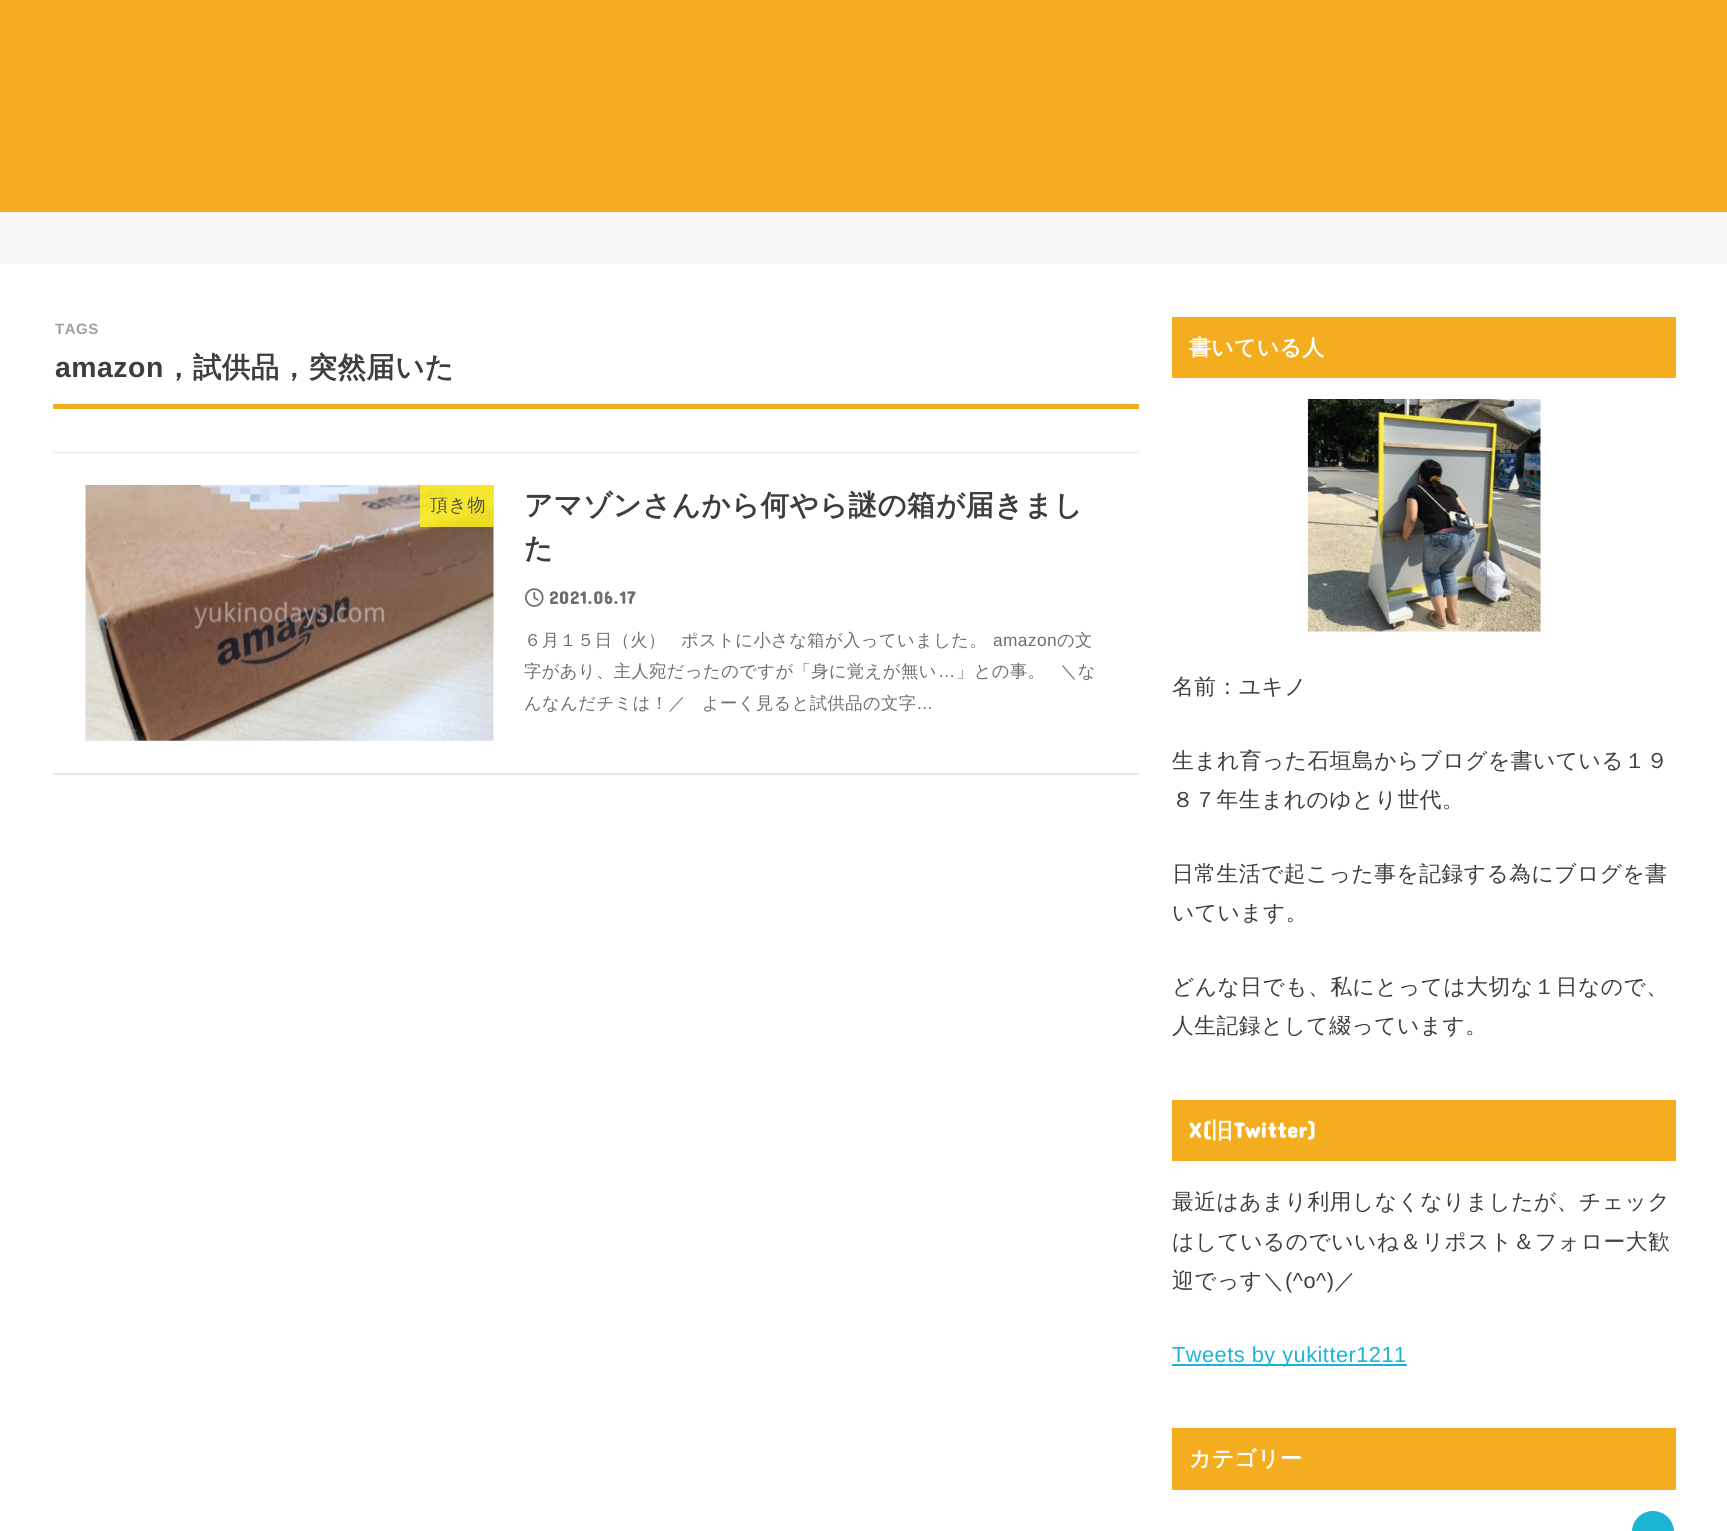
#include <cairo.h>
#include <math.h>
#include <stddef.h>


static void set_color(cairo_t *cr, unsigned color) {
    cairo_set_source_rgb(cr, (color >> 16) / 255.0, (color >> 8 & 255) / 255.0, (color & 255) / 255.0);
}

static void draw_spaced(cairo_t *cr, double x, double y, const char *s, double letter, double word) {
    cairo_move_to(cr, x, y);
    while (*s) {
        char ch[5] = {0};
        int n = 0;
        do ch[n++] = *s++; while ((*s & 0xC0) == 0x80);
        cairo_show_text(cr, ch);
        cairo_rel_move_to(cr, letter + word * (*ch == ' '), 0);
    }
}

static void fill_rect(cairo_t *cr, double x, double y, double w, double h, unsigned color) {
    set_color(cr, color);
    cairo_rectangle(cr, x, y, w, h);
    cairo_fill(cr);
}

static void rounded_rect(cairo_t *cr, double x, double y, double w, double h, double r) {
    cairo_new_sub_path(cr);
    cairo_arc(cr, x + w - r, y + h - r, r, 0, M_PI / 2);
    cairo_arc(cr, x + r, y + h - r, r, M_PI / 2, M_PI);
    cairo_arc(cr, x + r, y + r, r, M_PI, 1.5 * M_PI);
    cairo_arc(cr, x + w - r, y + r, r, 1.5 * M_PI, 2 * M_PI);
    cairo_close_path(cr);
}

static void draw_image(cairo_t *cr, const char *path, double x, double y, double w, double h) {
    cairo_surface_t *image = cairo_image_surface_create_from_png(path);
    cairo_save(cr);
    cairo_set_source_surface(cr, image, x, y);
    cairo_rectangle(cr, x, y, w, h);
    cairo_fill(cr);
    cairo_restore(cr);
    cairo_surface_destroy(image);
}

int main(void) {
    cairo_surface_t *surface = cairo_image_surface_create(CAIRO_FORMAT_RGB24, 1727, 1531);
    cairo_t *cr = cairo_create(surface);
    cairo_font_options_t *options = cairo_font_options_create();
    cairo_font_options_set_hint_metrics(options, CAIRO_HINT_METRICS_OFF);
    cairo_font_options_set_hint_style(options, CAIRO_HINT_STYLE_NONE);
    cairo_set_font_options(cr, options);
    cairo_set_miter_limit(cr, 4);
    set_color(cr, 0xF7F7F7);
    cairo_paint(cr);
    fill_rect(cr, 0, 0, 1727, 212, 0xF4AD1F);
    fill_rect(cr, 0, 264, 1727, 1267, 0xFFFFFF);
    fill_rect(cr, 53, 404, 1086, 5, 0xF4AD1F);
    cairo_select_font_face(cr, "Liberation Sans", CAIRO_FONT_SLANT_NORMAL, CAIRO_FONT_WEIGHT_BOLD);
    cairo_set_font_size(cr, 15);
    set_color(cr, 0x9F9F9F);
    draw_spaced(cr, 55, 334, "TAGS", 0.5, 0);
    cairo_set_font_size(cr, 28.4);
    set_color(cr, 0x3E3E3E);
    draw_spaced(cr, 55, 377, "amazon", 0.5, 0);
    cairo_select_font_face(cr, "WenQuanYi Zen Hei", CAIRO_FONT_SLANT_NORMAL, CAIRO_FONT_WEIGHT_BOLD);
    draw_spaced(cr, 164, 377, "，試供品，突然届いた", 0.5, 0);
    fill_rect(cr, 53, 452, 1086, 1, 0xE6E6E6);
    fill_rect(cr, 53, 773, 1086, 2, 0xE6E6E6);
    draw_image(cr, "assets/img1.png", 85, 485, 409, 256);
    cairo_set_source_rgba(cr, 0.988, 0.933, 0.129, 0.88);
    cairo_rectangle(cr, 420, 485, 74, 42);
    cairo_fill(cr);
    cairo_select_font_face(cr, "WenQuanYi Zen Hei Medium", CAIRO_FONT_SLANT_NORMAL, CAIRO_FONT_WEIGHT_NORMAL);
    cairo_set_font_size(cr, 18);
    set_color(cr, 0x54523C);
    draw_spaced(cr, 430, 511, "頂き物", 0.5, 0);
    cairo_select_font_face(cr, "WenQuanYi Zen Hei", CAIRO_FONT_SLANT_NORMAL, CAIRO_FONT_WEIGHT_BOLD);
    cairo_set_font_size(cr, 28.4);
    set_color(cr, 0x3E3E3E);
    draw_spaced(cr, 524, 515, "アマゾンさんから何やら謎の箱が届きまし", 0.5, 0);
    draw_spaced(cr, 524, 558, "た", 0.5, 0);
    draw_image(cr, "assets/img2.png", 525, 588, 19, 19);
    cairo_select_font_face(cr, "Concert One", CAIRO_FONT_SLANT_NORMAL, CAIRO_FONT_WEIGHT_NORMAL);
    cairo_set_font_size(cr, 18.5);
    set_color(cr, 0x6E6E6E);
    draw_spaced(cr, 549, 604, "2021.06.17", 0.5, 0);
    cairo_select_font_face(cr, "WenQuanYi Zen Hei Medium", CAIRO_FONT_SLANT_NORMAL, CAIRO_FONT_WEIGHT_NORMAL);
    cairo_set_font_size(cr, 17.3);
    draw_spaced(cr, 524, 646, "６月１５日（火）", 0.4, 0);
    draw_spaced(cr, 681, 646, "ポストに小さな箱が入っていました。", 0.4, 0);
    cairo_select_font_face(cr, "Liberation Sans", CAIRO_FONT_SLANT_NORMAL, CAIRO_FONT_WEIGHT_NORMAL);
    draw_spaced(cr, 993, 646, "amazon", 0.4, 0);
    cairo_select_font_face(cr, "WenQuanYi Zen Hei Medium", CAIRO_FONT_SLANT_NORMAL, CAIRO_FONT_WEIGHT_NORMAL);
    draw_spaced(cr, 1057, 646, "の文", 0.4, 0);
    draw_spaced(cr, 524, 677, "字があり、主人宛だったのですが「身に覚えが無い", 0.4, 0);
    cairo_select_font_face(cr, "Liberation Sans", CAIRO_FONT_SLANT_NORMAL, CAIRO_FONT_WEIGHT_NORMAL);
    draw_spaced(cr, 938, 677, "…", 0.4, 0);
    cairo_select_font_face(cr, "WenQuanYi Zen Hei Medium", CAIRO_FONT_SLANT_NORMAL, CAIRO_FONT_WEIGHT_NORMAL);
    draw_spaced(cr, 956, 677, "」との事。", 0.4, 0);
    draw_spaced(cr, 1060, 677, "＼な", 0.4, 0);
    draw_spaced(cr, 524, 709, "んなんだチミは！／", 0.4, 0);
    draw_spaced(cr, 702, 709, "よーく見ると試供品の文字", 0.4, 0);
    cairo_select_font_face(cr, "Liberation Sans", CAIRO_FONT_SLANT_NORMAL, CAIRO_FONT_WEIGHT_NORMAL);
    draw_spaced(cr, 917, 709, "...", 0.4, 0);
    fill_rect(cr, 1172, 317, 504, 61, 0xF4AD1F);
    cairo_select_font_face(cr, "WenQuanYi Zen Hei", CAIRO_FONT_SLANT_NORMAL, CAIRO_FONT_WEIGHT_BOLD);
    cairo_set_font_size(cr, 21.75);
    set_color(cr, 0xFFFFFF);
    draw_spaced(cr, 1189, 355, "書いている人", 0.5, 0);
    draw_image(cr, "assets/img3.png", 1307, 399, 234, 233);
    cairo_select_font_face(cr, "WenQuanYi Zen Hei Medium", CAIRO_FONT_SLANT_NORMAL, CAIRO_FONT_WEIGHT_NORMAL);
    set_color(cr, 0x3E3E3E);
    draw_spaced(cr, 1172, 694, "名前：ユキノ", 0.5, 0);
    draw_spaced(cr, 1172, 768, "生まれ育った石垣島からブログを書いている１９", 0.5, 0);
    draw_spaced(cr, 1172, 807, "８７年生まれのゆとり世代。", 0.5, 0);
    draw_spaced(cr, 1172, 881, "日常生活で起こった事を記録する為にブログを書", 0.5, 0);
    draw_spaced(cr, 1172, 920, "いています。", 0.5, 0);
    draw_spaced(cr, 1172, 994, "どんな日でも、私にとっては大切な１日なので、", 0.5, 0);
    draw_spaced(cr, 1172, 1033, "人生記録として綴っています。", 0.5, 0);
    fill_rect(cr, 1172, 1100, 504, 61, 0xF4AD1F);
    cairo_select_font_face(cr, "Concert One", CAIRO_FONT_SLANT_NORMAL, CAIRO_FONT_WEIGHT_BOLD);
    set_color(cr, 0xFFFFFF);
    draw_spaced(cr, 1189, 1138, "X(", 0.5, 0);
    cairo_select_font_face(cr, "WenQuanYi Zen Hei", CAIRO_FONT_SLANT_NORMAL, CAIRO_FONT_WEIGHT_BOLD);
    draw_spaced(cr, 1211, 1138, "旧", 0.5, 0);
    cairo_select_font_face(cr, "Concert One", CAIRO_FONT_SLANT_NORMAL, CAIRO_FONT_WEIGHT_BOLD);
    draw_spaced(cr, 1234, 1138, "Twitter)", 0.5, 0);
    cairo_select_font_face(cr, "WenQuanYi Zen Hei Medium", CAIRO_FONT_SLANT_NORMAL, CAIRO_FONT_WEIGHT_NORMAL);
    set_color(cr, 0x3E3E3E);
    draw_spaced(cr, 1172, 1209, "最近はあまり利用しなくなりましたが、チェック", 0.5, 0);
    draw_spaced(cr, 1172, 1249, "はしているのでいいね＆リポスト＆フォロー大歓", 0.5, 0);
    draw_spaced(cr, 1172, 1288, "迎でっす＼", 0.5, 0);
    cairo_select_font_face(cr, "Liberation Sans", CAIRO_FONT_SLANT_NORMAL, CAIRO_FONT_WEIGHT_NORMAL);
    draw_spaced(cr, 1285, 1288, "(^o^)", 0.5, 0);
    cairo_select_font_face(cr, "WenQuanYi Zen Hei Medium", CAIRO_FONT_SLANT_NORMAL, CAIRO_FONT_WEIGHT_NORMAL);
    draw_spaced(cr, 1334, 1288, "／", 0.5, 0);
    fill_rect(cr, 1172, 1364, 235, 2, 0x1BB4D3);
    cairo_select_font_face(cr, "Liberation Sans", CAIRO_FONT_SLANT_NORMAL, CAIRO_FONT_WEIGHT_NORMAL);
    draw_spaced(cr, 1172, 1362, "Tweets by yukitter1211", 0.5, 0);
    fill_rect(cr, 1172, 1428, 504, 62, 0xF4AD1F);
    cairo_select_font_face(cr, "WenQuanYi Zen Hei", CAIRO_FONT_SLANT_NORMAL, CAIRO_FONT_WEIGHT_BOLD);
    set_color(cr, 0xFFFFFF);
    draw_spaced(cr, 1189, 1466, "カテゴリー", 0.5, 0);
    set_color(cr, 0x1BB4D3);
    rounded_rect(cr, 1632, 1511, 42, 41, 21);
    cairo_fill(cr);
    cairo_surface_write_to_png(surface, "output.png");
    cairo_font_options_destroy(options);
    cairo_destroy(cr);
    cairo_surface_destroy(surface);
    return 0;
}
